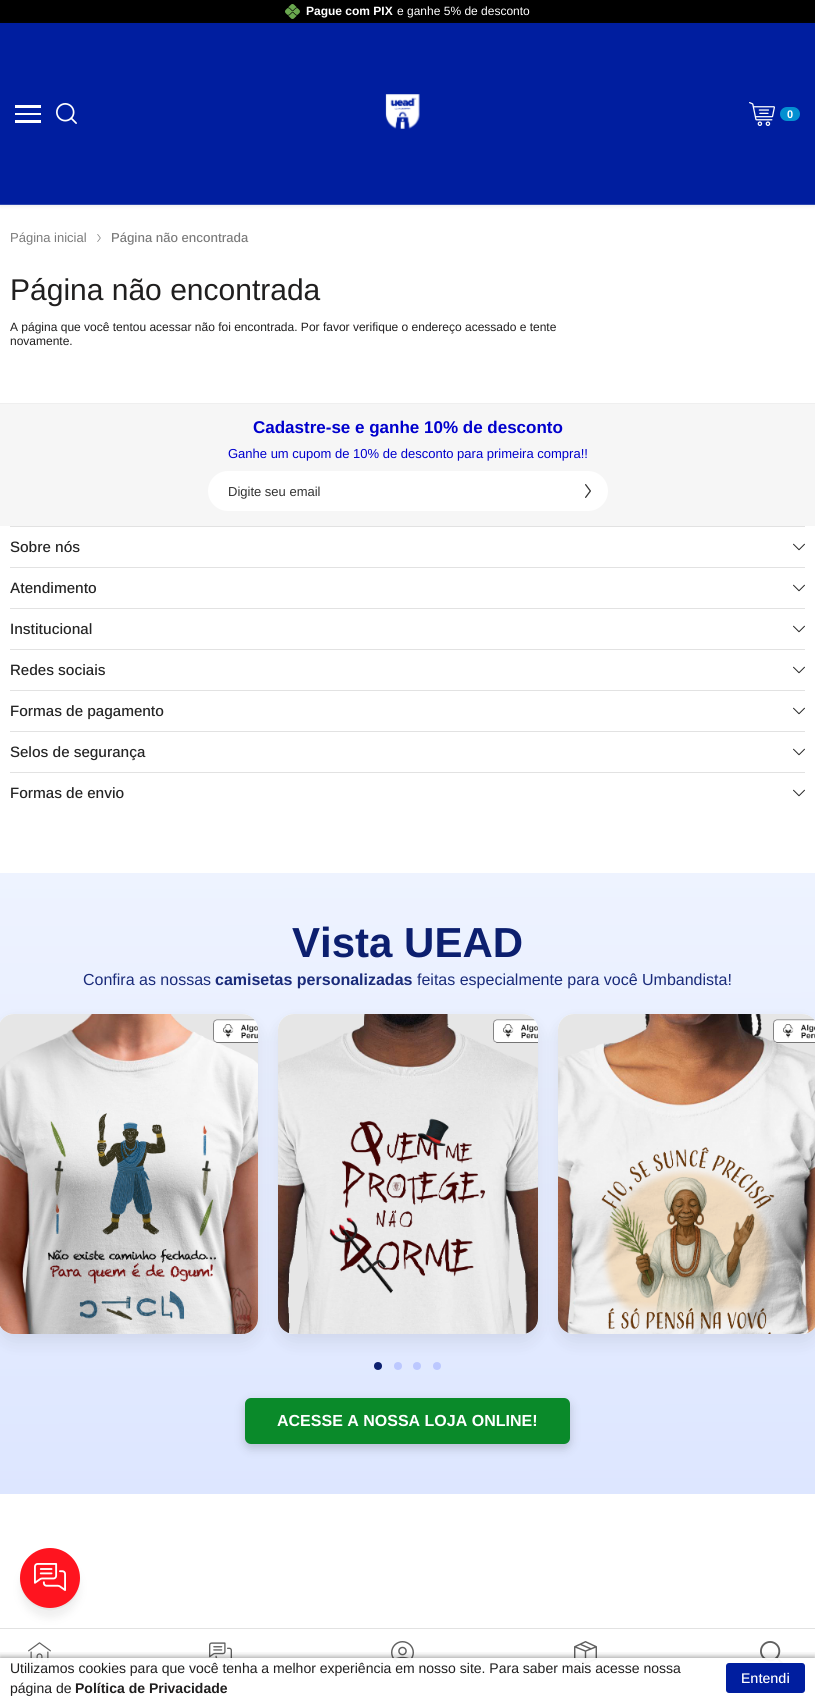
#include <cairo.h>
#include <math.h>
#include <stddef.h>


static void set_color(cairo_t *cr, unsigned color) {
    cairo_set_source_rgb(cr, (color >> 16) / 255.0, (color >> 8 & 255) / 255.0, (color & 255) / 255.0);
}

static void draw_text(cairo_t *cr, double x, double y, const char *s, const char *family, double size, int italic, int bold, unsigned color) {
    cairo_select_font_face(cr, family, italic ? CAIRO_FONT_SLANT_ITALIC : CAIRO_FONT_SLANT_NORMAL,
        bold ? CAIRO_FONT_WEIGHT_BOLD : CAIRO_FONT_WEIGHT_NORMAL);
    cairo_set_font_size(cr, size);
    set_color(cr, color);
    cairo_move_to(cr, x, y);
    cairo_show_text(cr, s);
}

static void fill_rect(cairo_t *cr, double x, double y, double w, double h, unsigned color) {
    set_color(cr, color);
    cairo_rectangle(cr, x, y, w, h);
    cairo_fill(cr);
}

static void rounded_rect(cairo_t *cr, double x, double y, double w, double h, double r) {
    cairo_new_sub_path(cr);
    cairo_arc(cr, x + w - r, y + h - r, r, 0, M_PI / 2);
    cairo_arc(cr, x + r, y + h - r, r, M_PI / 2, M_PI);
    cairo_arc(cr, x + r, y + r, r, M_PI, 1.5 * M_PI);
    cairo_arc(cr, x + w - r, y + r, r, 1.5 * M_PI, 2 * M_PI);
    cairo_close_path(cr);
}

static void draw_shadow(cairo_t *cr, double x, double y, double w, double h, double r, double blur, double alpha) {
    cairo_push_group_with_content(cr, CAIRO_CONTENT_ALPHA);
    cairo_set_operator(cr, CAIRO_OPERATOR_SOURCE);
    for (int i = 15; i >= -15 && fmin(w, h) + blur * i / 3 > 0; i -= 2) {
        double e = blur * i / 6;
        cairo_set_source_rgba(cr, 0, 0, 0, alpha * erfc((i - 1) / 8.5) / 2);
        rounded_rect(cr, x - e, y - e, w + 2 * e, h + 2 * e, fmax(0, fmin(r + e + blur * .6, fmin(w, h) / 2 + e)));
        cairo_fill(cr);
    }
    cairo_pattern_t *soft = cairo_pop_group(cr);
    cairo_mask(cr, soft);
    cairo_pattern_destroy(soft);
}

static void draw_image(cairo_t *cr, const char *path, double x, double y, double w, double h) {
    cairo_surface_t *image = cairo_image_surface_create_from_png(path);
    cairo_save(cr);
    cairo_set_source_surface(cr, image, x, y);
    cairo_rectangle(cr, x, y, w, h);
    cairo_fill(cr);
    cairo_restore(cr);
    cairo_surface_destroy(image);
}

int main(void) {
    cairo_surface_t *surface = cairo_image_surface_create(CAIRO_FORMAT_RGB24, 815, 1698);
    cairo_t *cr = cairo_create(surface);
    cairo_font_options_t *options = cairo_font_options_create();
    cairo_font_options_set_hint_metrics(options, CAIRO_HINT_METRICS_OFF);
    cairo_font_options_set_hint_style(options, CAIRO_HINT_STYLE_NONE);
    cairo_set_font_options(cr, options);
    cairo_set_miter_limit(cr, 4);
    cairo_pattern_t *gradient;
    set_color(cr, 0xFFFFFF);
    cairo_paint(cr);
    fill_rect(cr, 0, 0, 815, 23, 0x000000);
    draw_image(cr, "assets/img1.png", 285, 4, 15, 15);
    draw_text(cr, 306, 15, "Pague com PIX", "Arimo", 12, 0, 1, 0xFFFFFF);
    draw_text(cr, 397, 15, "e ganhe 5% de desconto", "Arimo", 12, 0, 0, 0xFFFFFF);
    set_color(cr, 0x525252);
    draw_shadow(cr, 0, 24, 815, 182, 0, 2, 0.13);
    fill_rect(cr, 0, 23, 815, 181, 0x001E9F);
    fill_rect(cr, 0, 204, 815, 1, 0x2D46AE);
    fill_rect(cr, 15, 120, 26, 3, 0xFFFFFF);
    fill_rect(cr, 15, 113, 26, 2, 0xFFFFFF);
    fill_rect(cr, 15, 105, 26, 3, 0xFFFFFF);
    draw_image(cr, "assets/img2.png", 56, 103, 21, 21);
    draw_image(cr, "assets/img3.png", 385, 94, 35, 35);
    draw_image(cr, "assets/img4.png", 749, 102, 26, 24);
    set_color(cr, 0x0490D1);
    rounded_rect(cr, 780, 107, 20, 14, 7);
    cairo_fill(cr);
    draw_text(cr, 787, 118, "0", "Arimo", 11, 0, 1, 0xFFFFFF);
    draw_text(cr, 10, 242, "Página inicial", "Arimo", 13, 0, 0, 0x7B7B7B);
    draw_image(cr, "assets/img5.png", 97, 234, 4, 8);
    draw_text(cr, 111, 242, "Página não encontrada", "Arimo Medium", 13, 0, 0, 0x7B7B7B);
    draw_text(cr, 10, 300, "Página não encontrada", "Arimo", 30, 0, 0, 0x201F1F);
    draw_text(cr, 10, 331, "A página que você tentou acessar não foi encontrada. Por favor verifique o endereço acessado e tente", "Arimo", 12, 0, 0, 0x201F1F);
    draw_text(cr, 10, 345, "novamente.", "Arimo", 12, 0, 0, 0x201F1F);
    fill_rect(cr, 0, 403, 815, 1, 0xEFEFEF);
    fill_rect(cr, 0, 404, 815, 122, 0xF6F6F6);
    draw_text(cr, 253, 433, "Cadastre-se e ganhe 10% de desconto", "Arimo", 17, 0, 1, 0x0000CD);
    draw_text(cr, 228, 458, "Ganhe um cupom de 10% de desconto para primeira compra!!", "Arimo", 13, 0, 0, 0x0000CD);
    set_color(cr, 0xFFFFFF);
    rounded_rect(cr, 208, 471, 400, 40, 20);
    cairo_fill(cr);
    draw_text(cr, 228, 496, "Digite seu email", "Arimo", 13, 0, 0, 0x323232);
    draw_image(cr, "assets/img6.png", 585, 484, 6, 14);
    fill_rect(cr, 10, 526, 795, 1, 0xE2E2E2);
    draw_text(cr, 10, 552, "Sobre nós", "Arimo Medium", 15, 0, 0, 0x252525);
    draw_image(cr, "assets/img7.png", 793, 543, 12, 8);
    fill_rect(cr, 10, 567, 795, 1, 0xE2E2E2);
    draw_text(cr, 10, 593, "Atendimento", "Arimo Medium", 15, 0, 0, 0x252525);
    draw_image(cr, "assets/img7.png", 793, 584, 12, 8);
    fill_rect(cr, 10, 608, 795, 1, 0xE2E2E2);
    draw_text(cr, 10, 634, "Institucional", "Arimo Medium", 15, 0, 0, 0x252525);
    draw_image(cr, "assets/img7.png", 793, 625, 12, 8);
    fill_rect(cr, 10, 649, 795, 1, 0xE2E2E2);
    draw_text(cr, 10, 675, "Redes sociais", "Arimo Medium", 15, 0, 0, 0x252525);
    draw_image(cr, "assets/img7.png", 793, 666, 12, 8);
    fill_rect(cr, 10, 690, 795, 1, 0xE2E2E2);
    draw_text(cr, 10, 716, "Formas de pagamento", "Arimo Medium", 15, 0, 0, 0x252525);
    draw_image(cr, "assets/img7.png", 793, 707, 12, 8);
    fill_rect(cr, 10, 731, 795, 1, 0xE2E2E2);
    draw_text(cr, 10, 757, "Selos de segurança", "Arimo Medium", 15, 0, 0, 0x252525);
    draw_image(cr, "assets/img7.png", 793, 748, 12, 8);
    fill_rect(cr, 10, 772, 795, 1, 0xE2E2E2);
    draw_text(cr, 10, 798, "Formas de envio", "Arimo Medium", 15, 0, 0, 0x252525);
    draw_image(cr, "assets/img7.png", 793, 789, 12, 8);
    gradient = cairo_pattern_create_linear(407, 873, 408, 1494);
    cairo_pattern_add_color_stop_rgba(gradient, 0, 0.933, 0.953, 1, 1);
    cairo_pattern_add_color_stop_rgba(gradient, 1, 0.867, 0.902, 1, 1);
    cairo_set_source(cr, gradient);
    cairo_pattern_destroy(gradient);
    cairo_rectangle(cr, 0, 873, 815, 621);
    cairo_fill(cr);
    draw_text(cr, 292, 957, "Vista UEAD", "Liberation Sans", 42, 0, 1, 0x0C1F6F);
    draw_text(cr, 83, 985, "Confira as nossas", "Liberation Sans", 16, 0, 0, 0x1A2B7A);
    draw_text(cr, 215, 985, "camisetas personalizadas", "Liberation Sans", 16, 0, 1, 0x1A2B7A);
    draw_text(cr, 417, 985, "feitas especialmente para você Umbandista!", "Liberation Sans", 16, 0, 0, 0x1A2B7A);
    set_color(cr, 0x000000);
    draw_shadow(cr, -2, 1022, 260, 320, 16, 9, 0.08);
    set_color(cr, 0xFFFFFF);
    rounded_rect(cr, -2, 1014, 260, 320, 16);
    cairo_fill(cr);
    draw_image(cr, "assets/img8.png", 0, 1014, 258, 320);
    set_color(cr, 0x0C1F6F);
    cairo_arc(cr, 378, 1366, 4, 0, 2 * M_PI);
    cairo_fill(cr);
    set_color(cr, 0xBCC8FF);
    cairo_arc(cr, 398, 1366, 4, 0, 2 * M_PI);
    cairo_fill(cr);
    cairo_arc(cr, 417, 1366, 4, 0, 2 * M_PI);
    cairo_fill(cr);
    cairo_arc(cr, 437, 1366, 4, 0, 2 * M_PI);
    cairo_fill(cr);
    set_color(cr, 0x000000);
    draw_shadow(cr, 278, 1022, 260, 320, 16, 9, 0.08);
    set_color(cr, 0xFFFFFF);
    rounded_rect(cr, 278, 1014, 260, 320, 16);
    cairo_fill(cr);
    draw_image(cr, "assets/img9.png", 278, 1014, 260, 320);
    set_color(cr, 0x000000);
    draw_shadow(cr, 558, 1022, 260, 320, 16, 9, 0.08);
    set_color(cr, 0xFFFFFF);
    rounded_rect(cr, 558, 1014, 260, 320, 16);
    cairo_fill(cr);
    draw_image(cr, "assets/img10.png", 558, 1014, 257, 320);
    set_color(cr, 0x000000);
    draw_shadow(cr, 245, 1402, 325, 46, 6, 5, 0.18);
    set_color(cr, 0x0A8A2A);
    rounded_rect(cr, 245, 1398, 325, 46, 6);
    cairo_fill(cr);
    draw_text(cr, 277, 1426, "ACESSE A NOSSA LOJA ONLINE!", "Liberation Sans", 16, 0, 1, 0xFFFFFF);
    set_color(cr, 0x676767);
    draw_shadow(cr, 20, 1558, 60, 60, 30, 4, 0.1);
    set_color(cr, 0x000000);
    draw_shadow(cr, 20, 1550, 60, 60, 30, 0.5, 0.04);
    set_color(cr, 0xFF141F);
    cairo_arc(cr, 50, 1578, 30, 0, 2 * M_PI);
    cairo_fill(cr);
    draw_image(cr, "assets/img11.png", 34, 1563, 32, 28);
    fill_rect(cr, 0, 1628, 815, 1, 0xE2E2E2);
    draw_image(cr, "assets/img12.png", 28, 1642, 23, 21);
    draw_image(cr, "assets/img13.png", 209, 1642, 23, 21);
    draw_image(cr, "assets/img14.png", 391, 1641, 23, 23);
    draw_image(cr, "assets/img15.png", 574, 1641, 23, 23);
    draw_image(cr, "assets/img16.png", 760, 1641, 23, 22);
    cairo_save(cr);
    cairo_rectangle(cr, 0, 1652, 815, 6);
    cairo_clip(cr);
    set_color(cr, 0x000000);
    draw_shadow(cr, 0, 1658, 815, 40, 0, 3.5, 0.5);
    cairo_restore(cr);
    cairo_set_source_rgba(cr, 1, 1, 1, 0.95);
    cairo_rectangle(cr, 30, 1658, 753, 6);
    cairo_fill(cr);
    draw_text(cr, 10, 1673, "Utilizamos cookies para que você tenha a melhor experiência em nosso site. Para saber mais acesse nossa", "Arimo", 14, 0, 0, 0x201F1F);
    draw_text(cr, 10, 1693, "página de", "Arimo", 14, 0, 0, 0x201F1F);
    draw_text(cr, 75, 1693, "Política de Privacidade", "Arimo", 14, 0, 1, 0x201F1F);
    set_color(cr, 0x001E9F);
    rounded_rect(cr, 726, 1663, 79, 30, 3);
    cairo_fill(cr);
    draw_text(cr, 741, 1683, "Entendi", "Arimo Medium", 14, 0, 0, 0xFFFFFF);
    cairo_surface_write_to_png(surface, "output.png");
    cairo_font_options_destroy(options);
    cairo_destroy(cr);
    cairo_surface_destroy(surface);
    return 0;
}
